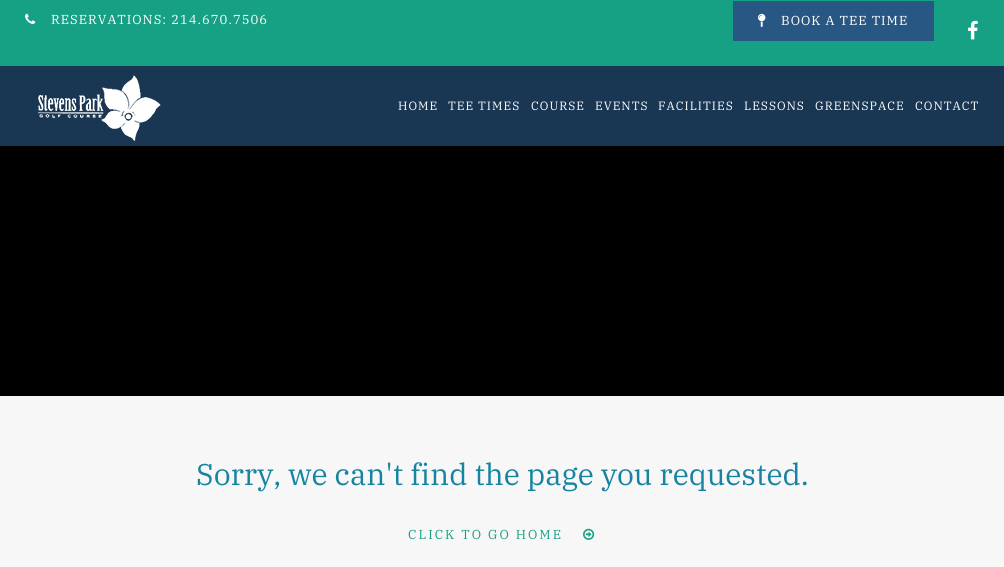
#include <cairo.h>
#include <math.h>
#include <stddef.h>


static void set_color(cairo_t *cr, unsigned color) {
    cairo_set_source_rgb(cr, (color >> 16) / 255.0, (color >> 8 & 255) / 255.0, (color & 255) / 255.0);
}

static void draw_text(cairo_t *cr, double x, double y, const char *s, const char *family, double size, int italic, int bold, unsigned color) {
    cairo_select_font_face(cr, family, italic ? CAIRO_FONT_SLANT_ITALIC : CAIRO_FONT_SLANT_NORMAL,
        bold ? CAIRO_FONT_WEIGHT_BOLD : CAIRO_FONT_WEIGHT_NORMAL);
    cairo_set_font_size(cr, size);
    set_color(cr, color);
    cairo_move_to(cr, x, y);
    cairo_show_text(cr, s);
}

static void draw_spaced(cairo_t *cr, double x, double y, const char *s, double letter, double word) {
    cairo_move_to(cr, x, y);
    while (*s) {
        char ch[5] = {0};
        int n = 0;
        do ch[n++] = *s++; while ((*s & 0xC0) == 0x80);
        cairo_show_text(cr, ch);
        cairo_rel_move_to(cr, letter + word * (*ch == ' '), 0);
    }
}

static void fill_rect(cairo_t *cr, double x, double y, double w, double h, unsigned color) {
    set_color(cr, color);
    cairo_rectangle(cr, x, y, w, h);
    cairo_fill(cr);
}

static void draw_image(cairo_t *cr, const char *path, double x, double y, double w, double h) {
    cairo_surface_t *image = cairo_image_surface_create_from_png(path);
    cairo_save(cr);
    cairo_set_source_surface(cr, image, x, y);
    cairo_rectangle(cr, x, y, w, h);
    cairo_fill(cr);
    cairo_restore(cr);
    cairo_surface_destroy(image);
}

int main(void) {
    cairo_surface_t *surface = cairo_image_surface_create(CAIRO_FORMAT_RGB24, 1004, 567);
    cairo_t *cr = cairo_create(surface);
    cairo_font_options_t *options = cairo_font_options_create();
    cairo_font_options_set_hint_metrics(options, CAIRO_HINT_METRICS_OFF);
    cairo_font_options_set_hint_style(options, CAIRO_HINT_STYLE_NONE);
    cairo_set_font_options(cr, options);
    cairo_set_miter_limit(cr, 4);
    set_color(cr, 0x193652);
    cairo_paint(cr);
    fill_rect(cr, 0, 0, 1004, 66, 0x16A084);
    draw_image(cr, "assets/img1.png", 25, 13, 11, 11);
    cairo_select_font_face(cr, "IBM Plex Serif", CAIRO_FONT_SLANT_NORMAL, CAIRO_FONT_WEIGHT_NORMAL);
    cairo_set_font_size(cr, 13);
    set_color(cr, 0xFFFFFF);
    draw_spaced(cr, 51, 24, "RESERVATIONS: 214.670.7506", 1, 0);
    fill_rect(cr, 733, 1, 201, 40, 0x295784);
    draw_image(cr, "assets/img2.png", 758, 13, 8, 14);
    set_color(cr, 0xFFFFFF);
    draw_spaced(cr, 781, 25, "BOOK A TEE TIME", 1, 0);
    draw_image(cr, "assets/img3.png", 968, 20, 10, 20);
    draw_image(cr, "assets/img4.png", 38, 75, 123, 67);
    cairo_set_font_size(cr, 12);
    draw_spaced(cr, 398, 110, "HOME", 1, 0);
    draw_spaced(cr, 448, 110, "TEE TIMES", 1, 0);
    draw_spaced(cr, 531, 110, "COURSE", 1, 0);
    draw_spaced(cr, 595, 110, "EVENTS", 1, 0);
    draw_spaced(cr, 658, 110, "FACILITIES", 1, 0);
    draw_spaced(cr, 744, 110, "LESSONS", 1, 0);
    draw_spaced(cr, 815, 110, "GREENSPACE", 1, 0);
    draw_spaced(cr, 915, 110, "CONTACT", 1, 0);
    fill_rect(cr, 0, 146, 1004, 250, 0x000000);
    fill_rect(cr, 0, 396, 1004, 171, 0xF7F7F7);
    draw_text(cr, 196, 485, "Sorry, we can't find the page you requested.", "IBM Plex Serif", 30, 0, 0, 0x1684A0);
    cairo_set_font_size(cr, 13);
    set_color(cr, 0x16A084);
    draw_spaced(cr, 408, 539, "CLICK TO GO HOME", 2, 0);
    draw_image(cr, "assets/img5.png", 583, 528, 12, 12);
    cairo_surface_write_to_png(surface, "output.png");
    cairo_font_options_destroy(options);
    cairo_destroy(cr);
    cairo_surface_destroy(surface);
    return 0;
}
